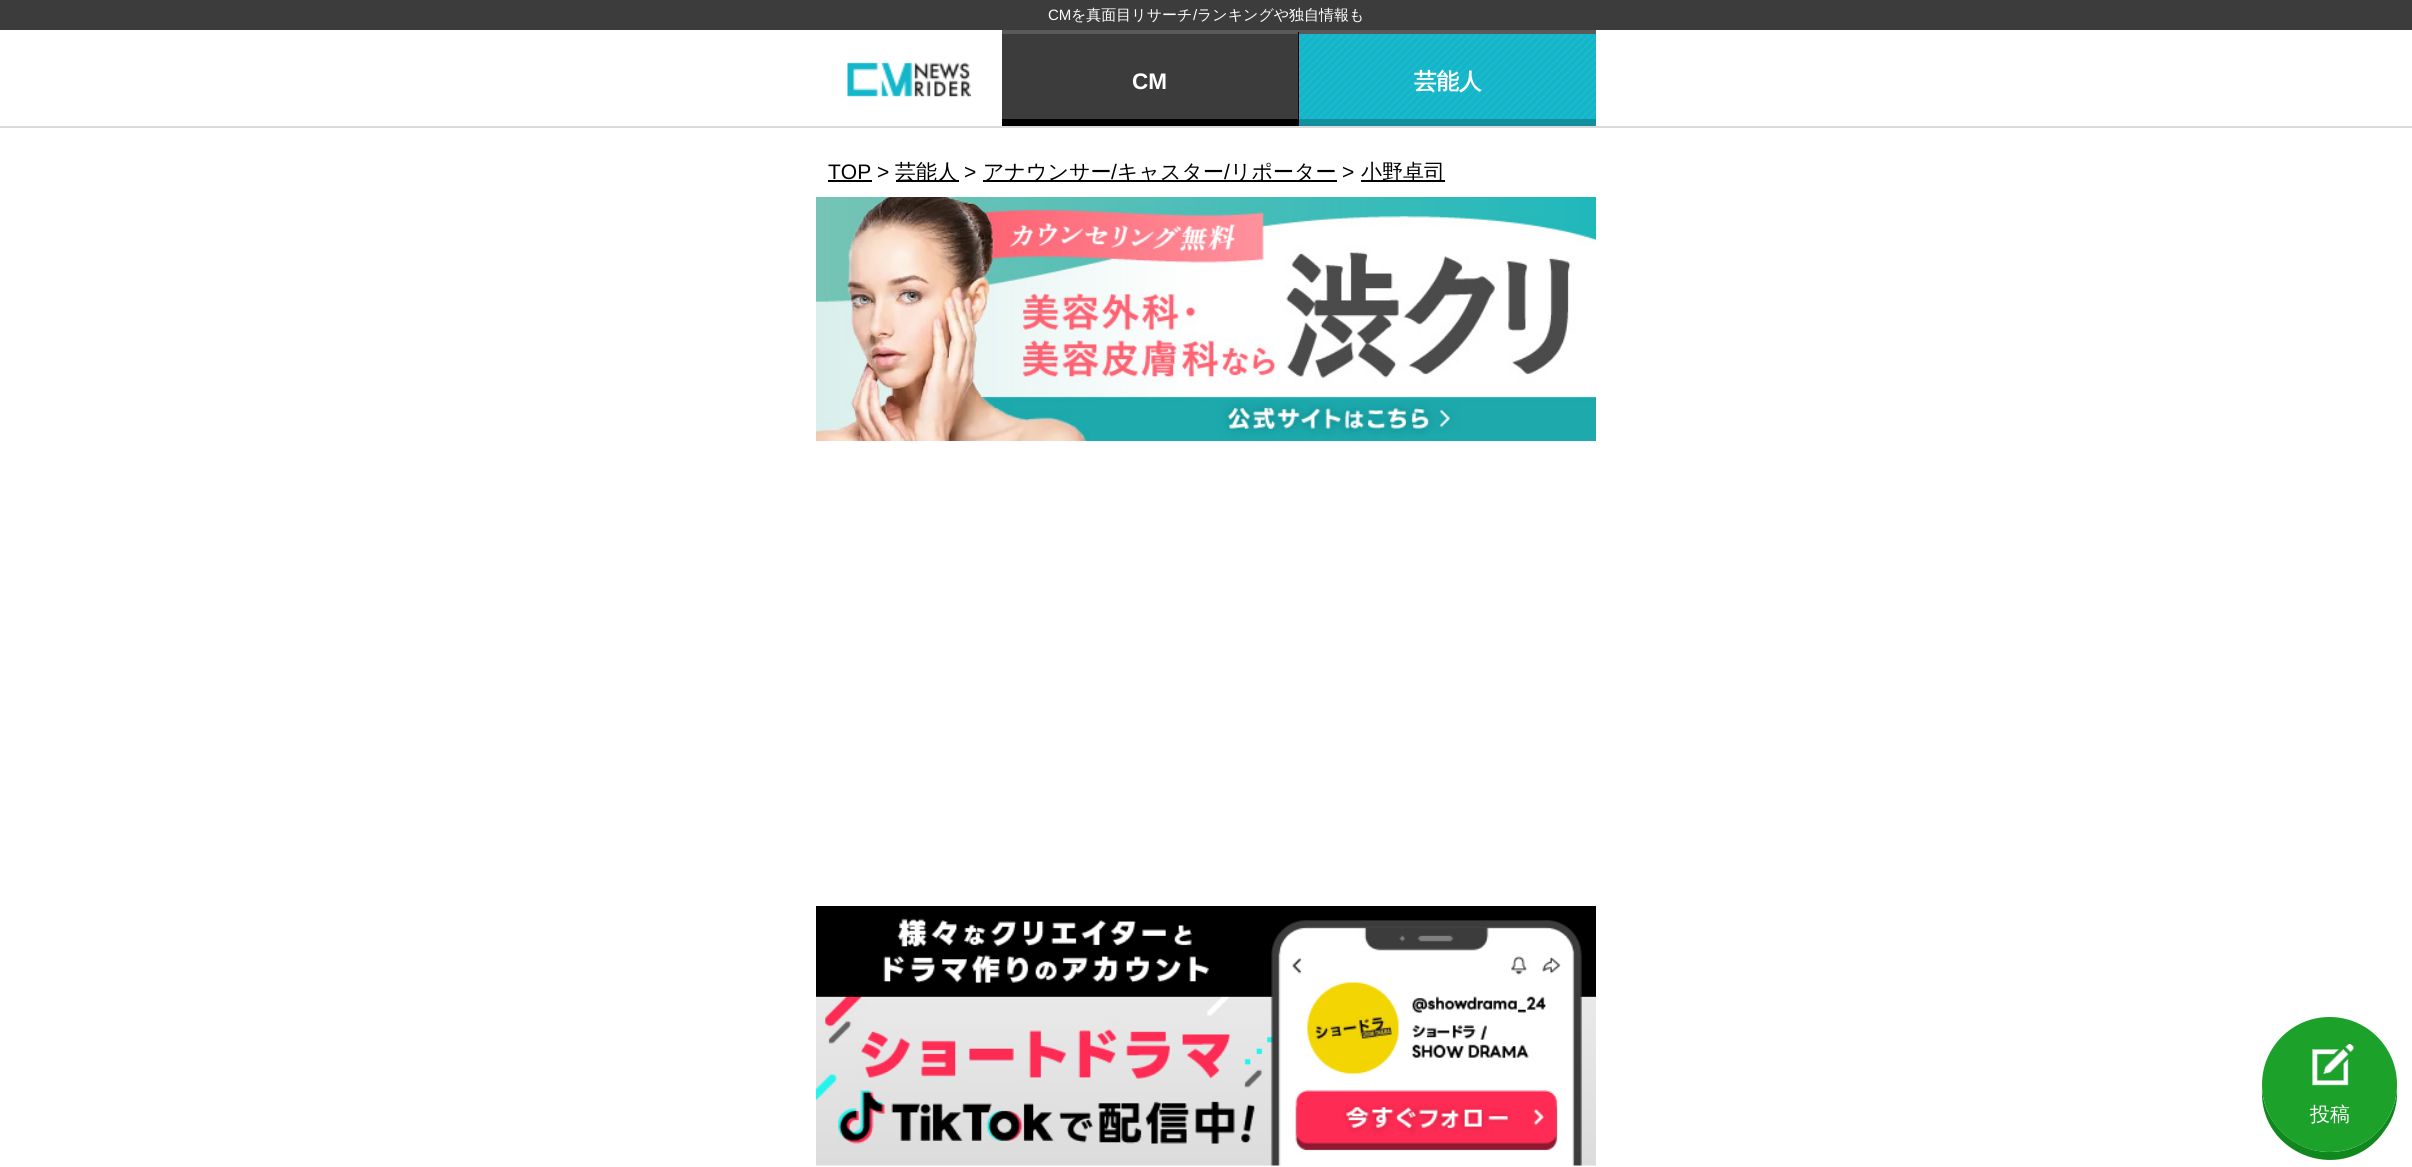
#include <cairo.h>
#include <math.h>
#include <stddef.h>


static void set_color(cairo_t *cr, unsigned color) {
    cairo_set_source_rgb(cr, (color >> 16) / 255.0, (color >> 8 & 255) / 255.0, (color & 255) / 255.0);
}

static void draw_text(cairo_t *cr, double x, double y, const char *s, const char *family, double size, int italic, int bold, unsigned color) {
    cairo_select_font_face(cr, family, italic ? CAIRO_FONT_SLANT_ITALIC : CAIRO_FONT_SLANT_NORMAL,
        bold ? CAIRO_FONT_WEIGHT_BOLD : CAIRO_FONT_WEIGHT_NORMAL);
    cairo_set_font_size(cr, size);
    set_color(cr, color);
    cairo_move_to(cr, x, y);
    cairo_show_text(cr, s);
}

static void fill_rect(cairo_t *cr, double x, double y, double w, double h, unsigned color) {
    set_color(cr, color);
    cairo_rectangle(cr, x, y, w, h);
    cairo_fill(cr);
}

static void draw_image(cairo_t *cr, const char *path, double x, double y, double w, double h) {
    cairo_surface_t *image = cairo_image_surface_create_from_png(path);
    cairo_save(cr);
    cairo_set_source_surface(cr, image, x, y);
    cairo_rectangle(cr, x, y, w, h);
    cairo_fill(cr);
    cairo_restore(cr);
    cairo_surface_destroy(image);
}

int main(void) {
    cairo_surface_t *surface = cairo_image_surface_create(CAIRO_FORMAT_RGB24, 2412, 1167);
    cairo_t *cr = cairo_create(surface);
    cairo_font_options_t *options = cairo_font_options_create();
    cairo_font_options_set_hint_metrics(options, CAIRO_HINT_METRICS_OFF);
    cairo_font_options_set_hint_style(options, CAIRO_HINT_STYLE_NONE);
    cairo_set_font_options(cr, options);
    cairo_set_miter_limit(cr, 4);
    set_color(cr, 0xFFFFFF);
    cairo_paint(cr);
    fill_rect(cr, 0, 126, 2412, 2, 0xDADADA);
    fill_rect(cr, 0, 0, 2412, 30, 0x3C3C3C);
    draw_text(cr, 1048, 20, "CM", "Liberation Sans", 15, 0, 0, 0xFFFFFF);
    draw_text(cr, 1071, 20, "を真面目リサーチ", "WenQuanYi Zen Hei Medium", 15, 0, 0, 0xFFFFFF);
    draw_text(cr, 1193, 20, "/", "Liberation Sans", 15, 0, 0, 0xFFFFFF);
    draw_text(cr, 1197, 20, "ランキングや独自情報も", "WenQuanYi Zen Hei Medium", 15, 0, 0, 0xFFFFFF);
    draw_image(cr, "assets/img1.png", 847, 62, 124, 35);
    fill_rect(cr, 1002, 30, 594, 2, 0x5A5A5A);
    fill_rect(cr, 1002, 34, 296, 85, 0x3C3C3C);
    fill_rect(cr, 1002, 32, 594, 2, 0x5A5A5A);
    fill_rect(cr, 1298, 32, 1, 94, 0x000000);
    draw_text(cr, 1132, 89, "CM", "Liberation Sans", 22.5, 0, 1, 0xFFFFFF);
    fill_rect(cr, 1002, 119, 296, 7, 0x000000);
    fill_rect(cr, 1299, 34, 297, 85, 0x13B6C9);
    draw_image(cr, "assets/img2.png", 1299, 34, 297, 85);
    draw_text(cr, 1414, 89, "芸能人", "WenQuanYi Zen Hei", 22.5, 0, 1, 0xFFFFFF);
    fill_rect(cr, 1299, 119, 297, 7, 0x10909F);
    draw_text(cr, 828, 179, "TOP >", "Liberation Sans", 21, 0, 0, 0x000000);
    fill_rect(cr, 828, 180, 44, 2, 0x000000);
    fill_rect(cr, 896, 180, 63, 2, 0x000000);
    draw_text(cr, 895, 179, "芸能人", "WenQuanYi Zen Hei Medium", 21, 0, 0, 0x000000);
    draw_text(cr, 964, 179, ">", "Liberation Sans", 21, 0, 0, 0x000000);
    fill_rect(cr, 983, 180, 354, 2, 0x000000);
    draw_text(cr, 983, 179, "アナウンサー", "WenQuanYi Zen Hei Medium", 21, 0, 0, 0x000000);
    draw_text(cr, 1111, 179, "/", "Liberation Sans", 21, 0, 0, 0x000000);
    draw_text(cr, 1117, 179, "キャスター", "WenQuanYi Zen Hei Medium", 21, 0, 0, 0x000000);
    draw_text(cr, 1224, 179, "/", "Liberation Sans", 21, 0, 0, 0x000000);
    draw_text(cr, 1230, 179, "リポーター", "WenQuanYi Zen Hei Medium", 21, 0, 0, 0x000000);
    draw_text(cr, 1342, 179, ">", "Liberation Sans", 21, 0, 0, 0x000000);
    fill_rect(cr, 1361, 180, 84, 2, 0x000000);
    draw_text(cr, 1361, 179, "小野卓司", "WenQuanYi Zen Hei Medium", 21, 0, 0, 0x000000);
    draw_image(cr, "assets/img3.png", 816, 197, 780, 244);
    draw_image(cr, "assets/img4.png", 816, 906, 780, 260);
    set_color(cr, 0x11881E);
    cairo_new_path(cr);
    cairo_move_to(cr, 2397, 1088);
    cairo_curve_to(cr, 2395, 1124, 2365, 1152, 2330, 1152);
    cairo_curve_to(cr, 2294, 1152, 2264, 1124, 2262, 1088);
    cairo_curve_to(cr, 2258, 1157, 2347, 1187, 2385, 1130);
    cairo_curve_to(cr, 2394, 1118, 2398, 1103, 2397, 1088);
    cairo_close_path(cr);
    cairo_fill(cr);
    set_color(cr, 0x1CA12B);
    cairo_arc(cr, 2329.5, 1084.5, 67.5, 0, 2 * M_PI);
    cairo_fill(cr);
    draw_image(cr, "assets/img5.png", 2312, 1044, 42, 42);
    draw_text(cr, 2310, 1121, "投稿", "WenQuanYi Zen Hei Medium", 20, 0, 0, 0xFFFFFF);
    cairo_surface_write_to_png(surface, "output.png");
    cairo_font_options_destroy(options);
    cairo_destroy(cr);
    cairo_surface_destroy(surface);
    return 0;
}
